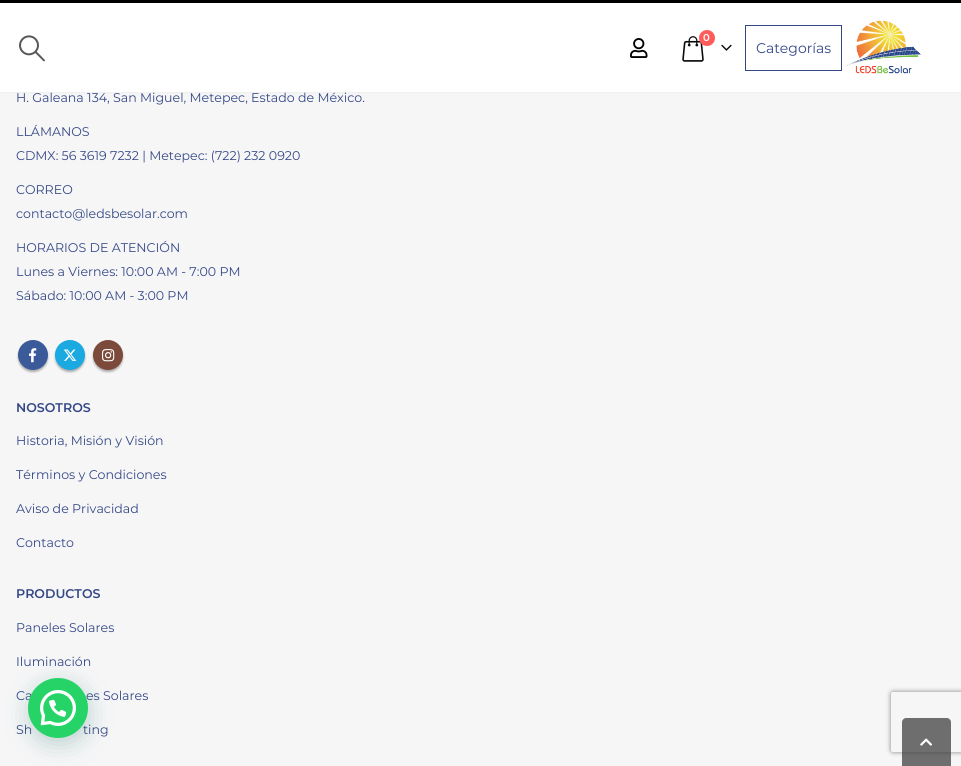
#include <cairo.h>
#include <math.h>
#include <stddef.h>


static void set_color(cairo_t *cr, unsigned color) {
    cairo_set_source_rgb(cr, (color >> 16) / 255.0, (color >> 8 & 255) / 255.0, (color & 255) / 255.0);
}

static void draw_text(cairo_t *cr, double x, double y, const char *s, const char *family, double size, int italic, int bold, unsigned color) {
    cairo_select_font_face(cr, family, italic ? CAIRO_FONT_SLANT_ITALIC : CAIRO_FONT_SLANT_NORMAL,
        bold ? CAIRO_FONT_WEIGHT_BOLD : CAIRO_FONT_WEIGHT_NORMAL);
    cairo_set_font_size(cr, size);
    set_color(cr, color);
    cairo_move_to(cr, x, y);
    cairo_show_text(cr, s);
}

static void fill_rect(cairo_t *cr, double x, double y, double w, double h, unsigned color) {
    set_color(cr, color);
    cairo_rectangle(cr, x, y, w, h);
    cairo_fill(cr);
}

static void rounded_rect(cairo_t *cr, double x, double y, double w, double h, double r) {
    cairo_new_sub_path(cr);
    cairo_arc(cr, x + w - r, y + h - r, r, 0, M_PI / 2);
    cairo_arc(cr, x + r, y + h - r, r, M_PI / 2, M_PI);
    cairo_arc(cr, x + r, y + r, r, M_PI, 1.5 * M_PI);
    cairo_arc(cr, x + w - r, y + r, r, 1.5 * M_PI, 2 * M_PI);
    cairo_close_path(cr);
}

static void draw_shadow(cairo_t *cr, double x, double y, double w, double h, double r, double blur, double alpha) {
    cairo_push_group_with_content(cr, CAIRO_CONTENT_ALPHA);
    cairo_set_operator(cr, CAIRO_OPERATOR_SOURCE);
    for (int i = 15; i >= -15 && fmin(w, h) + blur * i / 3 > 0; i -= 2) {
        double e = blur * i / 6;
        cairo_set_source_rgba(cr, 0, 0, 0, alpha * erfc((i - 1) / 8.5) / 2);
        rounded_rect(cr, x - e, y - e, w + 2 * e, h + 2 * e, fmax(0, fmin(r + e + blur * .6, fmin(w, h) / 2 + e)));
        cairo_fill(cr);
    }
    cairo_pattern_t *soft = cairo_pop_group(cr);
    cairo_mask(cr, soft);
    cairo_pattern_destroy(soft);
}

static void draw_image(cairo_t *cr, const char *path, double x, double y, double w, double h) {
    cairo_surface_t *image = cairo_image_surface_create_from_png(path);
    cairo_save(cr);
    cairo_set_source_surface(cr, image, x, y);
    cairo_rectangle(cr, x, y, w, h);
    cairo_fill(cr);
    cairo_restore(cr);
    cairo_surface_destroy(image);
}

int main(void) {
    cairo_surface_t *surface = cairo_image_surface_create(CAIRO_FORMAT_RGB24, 961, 766);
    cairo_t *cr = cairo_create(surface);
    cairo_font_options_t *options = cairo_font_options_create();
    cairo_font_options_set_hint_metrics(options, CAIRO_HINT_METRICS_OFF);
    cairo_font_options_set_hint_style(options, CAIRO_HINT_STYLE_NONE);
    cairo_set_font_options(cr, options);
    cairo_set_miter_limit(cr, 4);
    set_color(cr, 0xF6F6F7);
    cairo_paint(cr);
    set_color(cr, 0x000000);
    draw_shadow(cr, 0, 0, 961, 92, 0, 1.5, 0.06);
    fill_rect(cr, 0, 3, 961, 89, 0xFFFFFF);
    fill_rect(cr, 0, 0, 961, 3, 0x000000);
    draw_image(cr, "assets/img1.png", 19, 35, 26, 27);
    draw_image(cr, "assets/img2.png", 630, 38, 18, 20);
    draw_image(cr, "assets/img3.png", 682, 36, 22, 26);
    set_color(cr, 0xFF5B5B);
    cairo_arc(cr, 707, 38, 8, 0, 2 * M_PI);
    cairo_fill(cr);
    draw_text(cr, 703, 41, "0", "Montserrat SemiBold", 10, 0, 0, 0xFFFFFF);
    draw_image(cr, "assets/img4.png", 721, 44, 11, 7);
    cairo_rectangle(cr, 745.5, 25.5, 96, 45);
    set_color(cr, 0x354886);
    cairo_set_line_width(cr, 1);
    cairo_stroke(cr);
    draw_text(cr, 756, 53, "Categorías", "Montserrat", 14, 0, 0, 0x354886);
    draw_image(cr, "assets/img5.png", 846, 20, 76, 54);
    draw_text(cr, 16, 102, "H. Galeana 134, San Miguel, Metepec, Estado de México.", "Montserrat", 12.6, 0, 0, 0x354886);
    draw_text(cr, 16, 136, "LLÁMANOS", "Montserrat", 12.6, 0, 0, 0x354886);
    draw_text(cr, 16, 160, "CDMX: 56 3619 7232 | Metepec: (722) 232 0920", "Montserrat", 12.6, 0, 0, 0x354886);
    draw_text(cr, 16, 194, "CORREO", "Montserrat", 12.6, 0, 0, 0x354886);
    draw_text(cr, 16, 218, "contacto@ledsbesolar.com", "Montserrat", 12.6, 0, 0, 0x354886);
    draw_text(cr, 16, 252, "HORARIOS DE ATENCIÓN", "Montserrat", 12.6, 0, 0, 0x354886);
    draw_text(cr, 16, 276, "Lunes a Viernes: 10:00 AM - 7:00 PM", "Montserrat", 12.6, 0, 0, 0x354886);
    draw_text(cr, 16, 300, "Sábado: 10:00 AM - 3:00 PM", "Montserrat", 12.6, 0, 0, 0x354886);
    set_color(cr, 0x000000);
    draw_shadow(cr, 18, 342, 30, 30, 15, 1, 0.3);
    set_color(cr, 0x3B5A9A);
    cairo_arc(cr, 33, 355, 15, 0, 2 * M_PI);
    cairo_fill(cr);
    draw_image(cr, "assets/img6.png", 29, 348, 8, 15);
    set_color(cr, 0x000000);
    draw_shadow(cr, 55, 342, 30, 30, 15, 1, 0.3);
    set_color(cr, 0x1AA9E1);
    cairo_arc(cr, 70, 355, 15, 0, 2 * M_PI);
    cairo_fill(cr);
    draw_image(cr, "assets/img7.png", 63, 349, 14, 12);
    set_color(cr, 0x000000);
    draw_shadow(cr, 93, 342, 30, 30, 15, 1, 0.3);
    set_color(cr, 0x7C4A3A);
    cairo_arc(cr, 108, 355, 15, 0, 2 * M_PI);
    cairo_fill(cr);
    draw_image(cr, "assets/img8.png", 102, 349, 13, 13);
    draw_text(cr, 16, 412, "NOSOTROS", "Montserrat SemiBold", 12.6, 0, 0, 0x354886);
    draw_text(cr, 16, 445, "Historia, Misión y Visión", "Montserrat", 12.6, 0, 0, 0x354886);
    draw_text(cr, 16, 479, "Términos y Condiciones", "Montserrat", 12.6, 0, 0, 0x354886);
    draw_text(cr, 16, 513, "Aviso de Privacidad", "Montserrat", 12.6, 0, 0, 0x354886);
    draw_text(cr, 16, 547, "Contacto", "Montserrat", 12.6, 0, 0, 0x354886);
    draw_text(cr, 16, 598, "PRODUCTOS", "Montserrat SemiBold", 12.6, 0, 0, 0x354886);
    draw_text(cr, 16, 632, "Paneles Solares", "Montserrat", 12.6, 0, 0, 0x354886);
    draw_text(cr, 16, 666, "Iluminación", "Montserrat", 12.6, 0, 0, 0x354886);
    draw_text(cr, 16, 700, "Ca", "Montserrat", 12.6, 0, 0, 0x354886);
    draw_text(cr, 86, 700, "es Solares", "Montserrat", 12.6, 0, 0, 0x354886);
    draw_text(cr, 16, 734, "Sh", "Montserrat", 12.6, 0, 0, 0x354886);
    draw_text(cr, 83, 734, "ting", "Montserrat", 12.6, 0, 0, 0x354886);
    set_color(cr, 0x075E54);
    draw_shadow(cr, 29, 684, 60, 60, 30, 12, 0.24);
    set_color(cr, 0x25D366);
    cairo_arc(cr, 58, 708, 30, 0, 2 * M_PI);
    cairo_fill(cr);
    draw_image(cr, "assets/img9.png", 40, 690, 36, 36);
    cairo_save(cr);
    cairo_set_fill_rule(cr, CAIRO_FILL_RULE_EVEN_ODD);
    cairo_new_path(cr);
    cairo_move_to(cr, 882, 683);
    cairo_line_to(cr, 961, 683);
    cairo_line_to(cr, 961, 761);
    cairo_line_to(cr, 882, 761);
    cairo_close_path(cr);
    cairo_move_to(cr, 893, 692);
    cairo_line_to(cr, 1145, 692);
    cairo_curve_to(cr, 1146, 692, 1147, 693, 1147, 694);
    cairo_line_to(cr, 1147, 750);
    cairo_curve_to(cr, 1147, 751, 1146, 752, 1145, 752);
    cairo_line_to(cr, 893, 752);
    cairo_curve_to(cr, 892, 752, 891, 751, 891, 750);
    cairo_line_to(cr, 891, 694);
    cairo_curve_to(cr, 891, 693, 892, 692, 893, 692);
    cairo_close_path(cr);
    cairo_clip(cr);
    set_color(cr, 0x808080);
    draw_shadow(cr, 891, 692, 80, 60, 2, 2.5, 1);
    cairo_restore(cr);
    cairo_set_source_rgba(cr, 0.251, 0.251, 0.251, 0.75);
    cairo_new_path(cr);
    cairo_move_to(cr, 906, 718);
    cairo_line_to(cr, 947, 718);
    cairo_curve_to(cr, 949, 718, 951, 720, 951, 722);
    cairo_line_to(cr, 951, 766);
    cairo_line_to(cr, 902, 766);
    cairo_line_to(cr, 902, 722);
    cairo_curve_to(cr, 902, 720, 904, 718, 906, 718);
    cairo_close_path(cr);
    cairo_fill(cr);
    draw_image(cr, "assets/img10.png", 920, 738, 12, 8);
    cairo_surface_write_to_png(surface, "output.png");
    cairo_font_options_destroy(options);
    cairo_destroy(cr);
    cairo_surface_destroy(surface);
    return 0;
}
